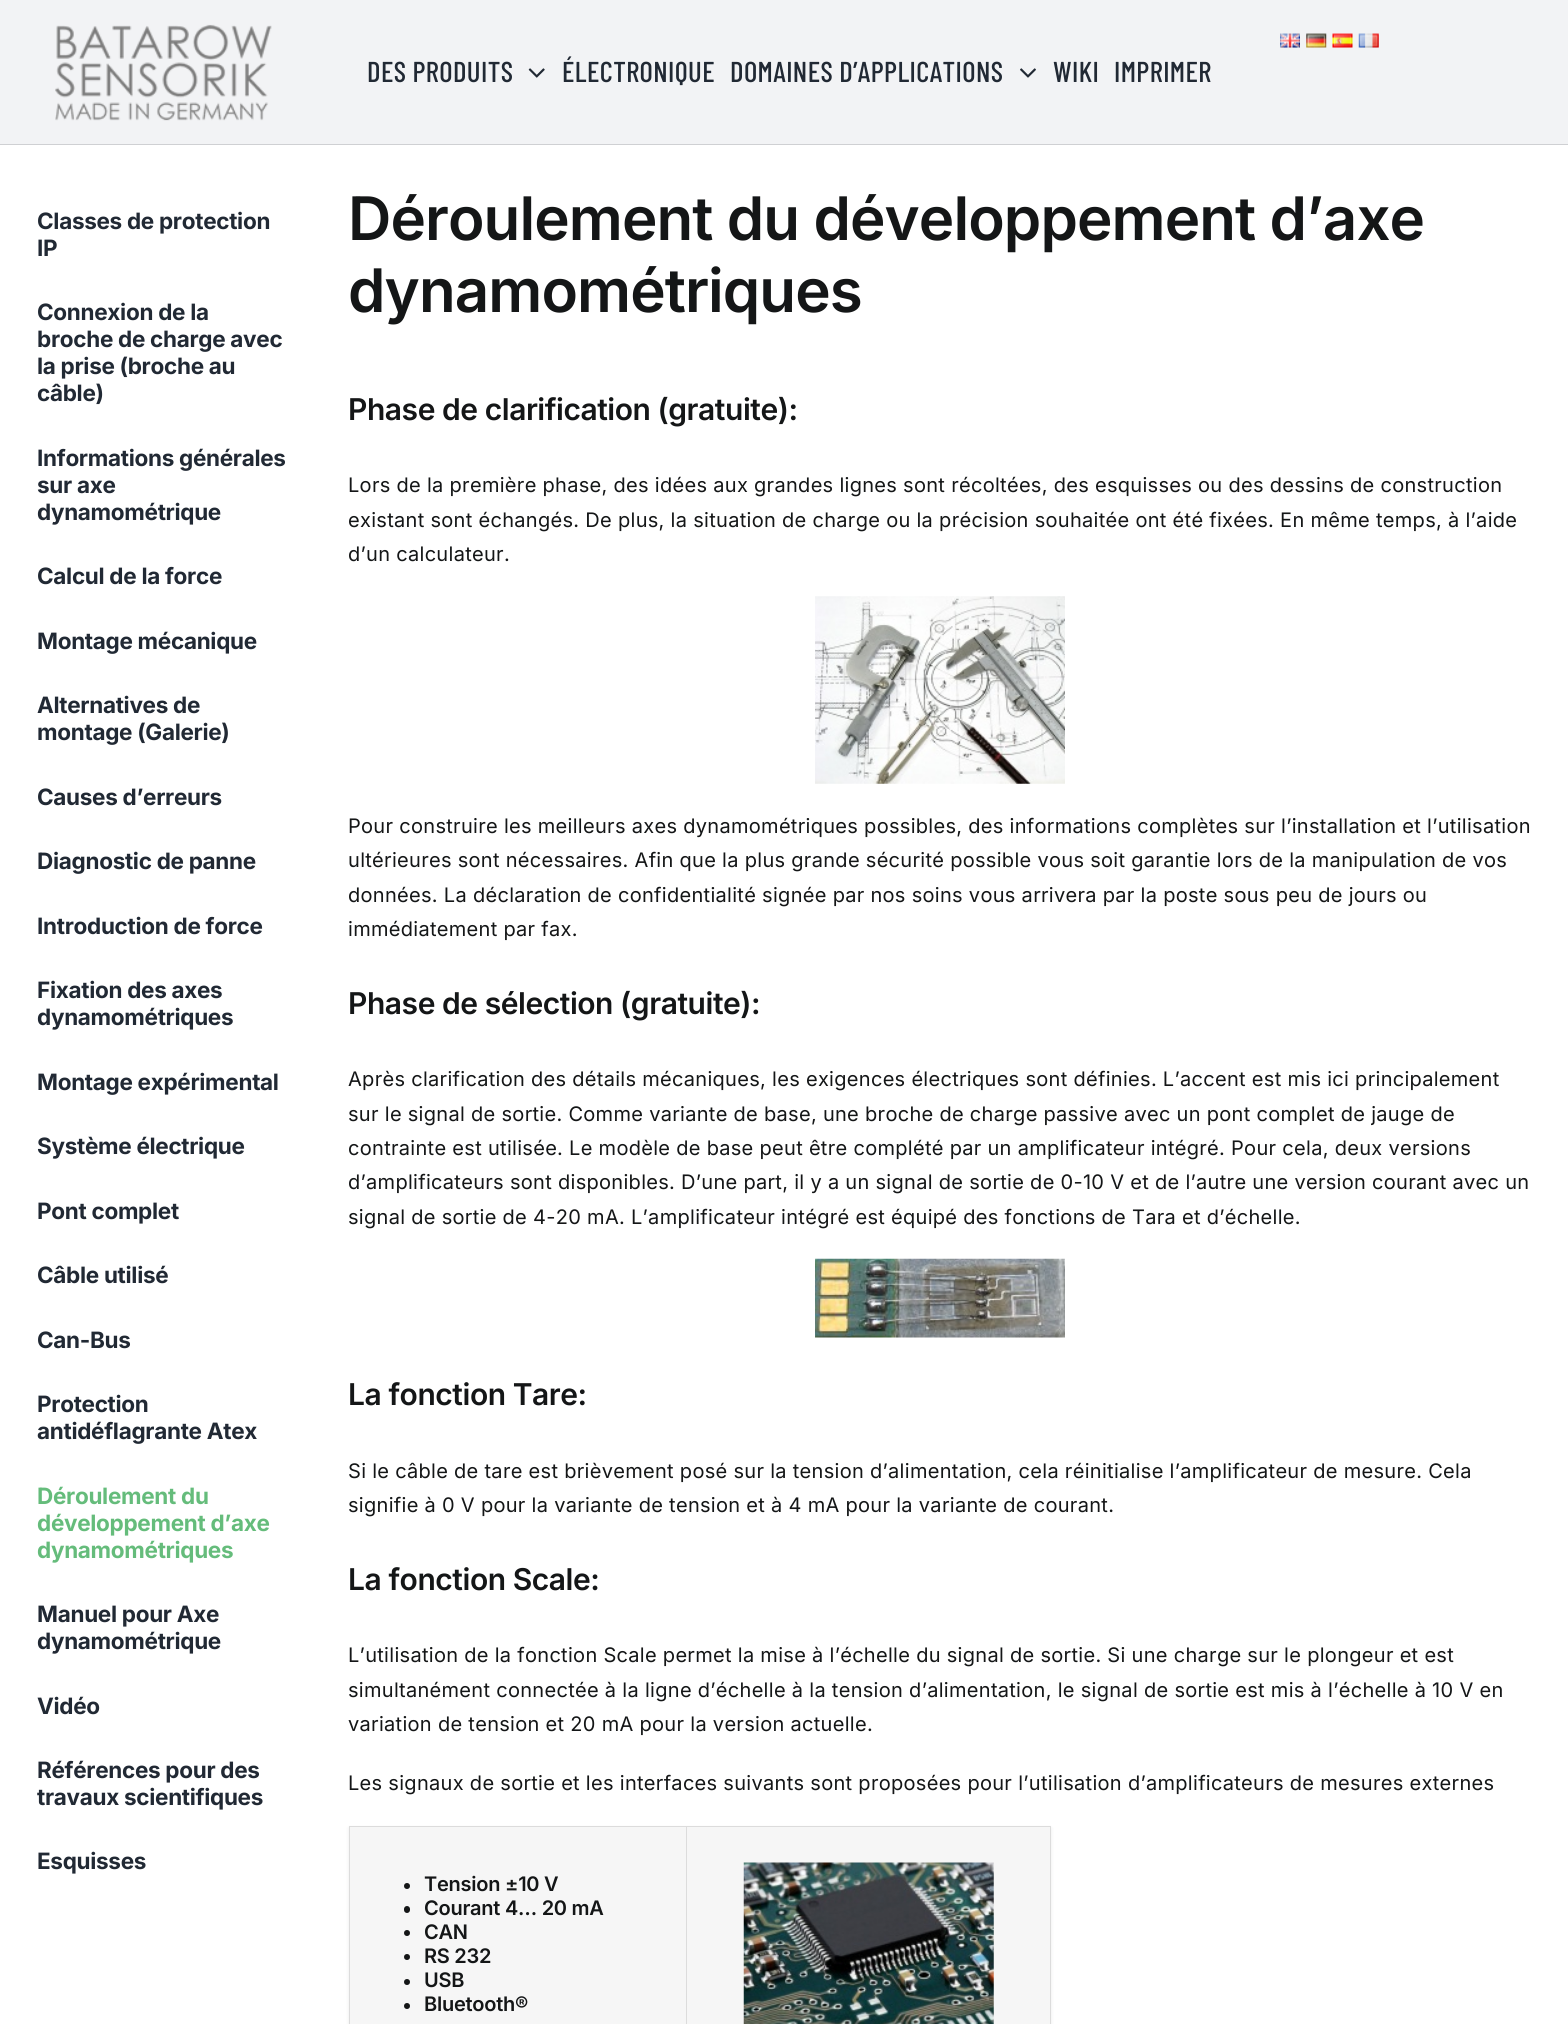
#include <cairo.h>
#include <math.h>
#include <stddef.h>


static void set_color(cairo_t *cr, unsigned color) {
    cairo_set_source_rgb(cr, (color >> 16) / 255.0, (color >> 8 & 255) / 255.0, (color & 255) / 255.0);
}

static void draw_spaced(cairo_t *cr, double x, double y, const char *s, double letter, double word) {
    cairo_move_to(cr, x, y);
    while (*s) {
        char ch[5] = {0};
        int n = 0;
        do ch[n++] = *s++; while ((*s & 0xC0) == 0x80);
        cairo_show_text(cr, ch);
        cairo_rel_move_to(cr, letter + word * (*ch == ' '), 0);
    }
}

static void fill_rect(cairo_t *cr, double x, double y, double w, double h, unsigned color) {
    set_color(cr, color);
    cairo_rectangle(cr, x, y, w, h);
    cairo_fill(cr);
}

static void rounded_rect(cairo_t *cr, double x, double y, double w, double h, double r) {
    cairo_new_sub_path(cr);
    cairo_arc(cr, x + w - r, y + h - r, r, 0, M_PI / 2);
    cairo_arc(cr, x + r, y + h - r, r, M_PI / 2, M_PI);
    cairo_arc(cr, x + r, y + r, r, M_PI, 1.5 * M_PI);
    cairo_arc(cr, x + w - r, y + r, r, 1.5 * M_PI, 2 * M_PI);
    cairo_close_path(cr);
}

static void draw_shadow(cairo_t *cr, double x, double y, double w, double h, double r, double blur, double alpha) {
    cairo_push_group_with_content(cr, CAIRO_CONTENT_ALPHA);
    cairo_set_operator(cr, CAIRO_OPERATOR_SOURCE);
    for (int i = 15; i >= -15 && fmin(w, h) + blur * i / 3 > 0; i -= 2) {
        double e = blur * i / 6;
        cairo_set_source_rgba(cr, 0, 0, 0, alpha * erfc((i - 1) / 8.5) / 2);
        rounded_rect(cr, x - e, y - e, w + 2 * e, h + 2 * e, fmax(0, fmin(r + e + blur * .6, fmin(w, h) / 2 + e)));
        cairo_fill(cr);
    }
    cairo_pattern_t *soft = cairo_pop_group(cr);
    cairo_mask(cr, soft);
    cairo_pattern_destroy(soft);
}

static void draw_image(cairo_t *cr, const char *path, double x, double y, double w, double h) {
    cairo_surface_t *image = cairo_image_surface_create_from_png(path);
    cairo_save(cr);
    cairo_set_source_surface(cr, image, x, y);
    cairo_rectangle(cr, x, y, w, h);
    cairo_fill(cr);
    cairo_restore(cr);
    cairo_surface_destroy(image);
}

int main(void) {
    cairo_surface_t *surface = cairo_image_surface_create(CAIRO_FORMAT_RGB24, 1568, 2024);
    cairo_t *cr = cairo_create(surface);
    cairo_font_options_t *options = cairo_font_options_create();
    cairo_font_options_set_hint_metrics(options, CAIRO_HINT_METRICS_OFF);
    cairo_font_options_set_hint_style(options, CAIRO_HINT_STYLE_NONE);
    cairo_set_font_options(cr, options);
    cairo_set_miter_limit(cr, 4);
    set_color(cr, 0xFFFFFF);
    cairo_paint(cr);
    fill_rect(cr, 0, 0, 1568, 144, 0xF2F3F5);
    fill_rect(cr, 0, 144, 1568, 1, 0xCFD0D3);
    draw_image(cr, "assets/img1.png", 55, 24, 217, 97);
    draw_image(cr, "assets/img2.png", 1280, 33, 20, 15);
    draw_image(cr, "assets/img3.png", 1306, 33, 21, 15);
    draw_image(cr, "assets/img4.png", 1332, 33, 21, 15);
    draw_image(cr, "assets/img5.png", 1358, 33, 21, 15);
    cairo_select_font_face(cr, "Barlow Condensed Medium", CAIRO_FONT_SLANT_NORMAL, CAIRO_FONT_WEIGHT_NORMAL);
    cairo_set_font_size(cr, 28.75);
    set_color(cr, 0x212934);
    draw_spaced(cr, 367, 82, "DES PRODUITS", 0.4, 0);
    draw_image(cr, "assets/img6.png", 528, 68, 17, 10);
    draw_spaced(cr, 562, 82, "ÉLECTRONIQUE", 0.4, 0);
    draw_spaced(cr, 730, 82, "DOMAINES D’APPLICATIONS", 0.4, 0);
    draw_image(cr, "assets/img7.png", 1020, 68, 16, 10);
    draw_spaced(cr, 1053, 82, "WIKI", 0.4, 0);
    draw_spaced(cr, 1114, 82, "IMPRIMER", 0.4, 0);
    cairo_select_font_face(cr, "Inter", CAIRO_FONT_SLANT_NORMAL, CAIRO_FONT_WEIGHT_BOLD);
    cairo_set_font_size(cr, 22.5);
    draw_spaced(cr, 37, 229, "Classes de protection", -0.3, 0);
    draw_spaced(cr, 37, 256, "IP", -0.3, 0);
    draw_spaced(cr, 37, 320, "Connexion de la", -0.3, 0);
    draw_spaced(cr, 37, 347, "broche de charge avec", -0.3, 0);
    draw_spaced(cr, 37, 374, "la prise (broche au", -0.3, 0);
    draw_spaced(cr, 37, 401, "câble)", -0.3, 0);
    draw_spaced(cr, 37, 466, "Informations générales", -0.3, 0);
    draw_spaced(cr, 37, 493, "sur axe", -0.3, 0);
    draw_spaced(cr, 37, 520, "dynamométrique", -0.3, 0);
    draw_spaced(cr, 37, 584, "Calcul de la force", -0.3, 0);
    draw_spaced(cr, 37, 649, "Montage mécanique", -0.3, 0);
    draw_spaced(cr, 37, 713, "Alternatives de", -0.3, 0);
    draw_spaced(cr, 37, 740, "montage (Galerie)", -0.3, 0);
    draw_spaced(cr, 37, 805, "Causes d’erreurs", -0.3, 0);
    draw_spaced(cr, 37, 869, "Diagnostic de panne", -0.3, 0);
    draw_spaced(cr, 37, 934, "Introduction de force", -0.3, 0);
    draw_spaced(cr, 37, 998, "Fixation des axes", -0.3, 0);
    draw_spaced(cr, 37, 1025, "dynamométriques", -0.3, 0);
    draw_spaced(cr, 37, 1090, "Montage expérimental", -0.3, 0);
    draw_spaced(cr, 37, 1154, "Système électrique", -0.3, 0);
    draw_spaced(cr, 37, 1219, "Pont complet", -0.3, 0);
    draw_spaced(cr, 37, 1283, "Câble utilisé", -0.3, 0);
    draw_spaced(cr, 37, 1348, "Can-Bus", -0.3, 0);
    draw_spaced(cr, 37, 1412, "Protection", -0.3, 0);
    draw_spaced(cr, 37, 1439, "antidéflagrante Atex", -0.3, 0);
    set_color(cr, 0x65BC7B);
    draw_spaced(cr, 37, 1504, "Déroulement du", -0.3, 0);
    draw_spaced(cr, 37, 1531, "développement d’axe", -0.3, 0);
    draw_spaced(cr, 37, 1558, "dynamométriques", -0.3, 0);
    set_color(cr, 0x212934);
    draw_spaced(cr, 37, 1622, "Manuel pour Axe", -0.3, 0);
    draw_spaced(cr, 37, 1649, "dynamométrique", -0.3, 0);
    draw_spaced(cr, 37, 1714, "Vidéo", -0.3, 0);
    draw_spaced(cr, 37, 1778, "Références pour des", -0.3, 0);
    draw_spaced(cr, 37, 1805, "travaux scientifiques", -0.3, 0);
    draw_spaced(cr, 37, 1869, "Esquisses", -0.3, 0);
    cairo_select_font_face(cr, "Inter SemiBold", CAIRO_FONT_SLANT_NORMAL, CAIRO_FONT_WEIGHT_NORMAL);
    cairo_set_font_size(cr, 60);
    set_color(cr, 0x141617);
    draw_spaced(cr, 348, 240, "Déroulement du développement d’axe", -0.9, 0);
    draw_spaced(cr, 348, 312, "dynamométriques", -0.9, 0);
    cairo_set_font_size(cr, 30);
    draw_spaced(cr, 348, 420, "Phase de clarification (gratuite):", -0.45, 0);
    cairo_select_font_face(cr, "Inter", CAIRO_FONT_SLANT_NORMAL, CAIRO_FONT_WEIGHT_NORMAL);
    cairo_set_font_size(cr, 20);
    draw_spaced(cr, 348, 492, "Lors de la première phase, des idées aux grandes lignes sont récoltées, des esquisses ou des dessins de construction", 0.3, 0);
    draw_spaced(cr, 348, 527, "existant sont échangés. De plus, la situation de charge ou la précision souhaitée ont été fixées. En même temps, à l’aide", 0.3, 0);
    draw_spaced(cr, 348, 561, "d’un calculateur.", 0.3, 0);
    draw_image(cr, "assets/img8.png", 815, 596, 250, 188);
    draw_spaced(cr, 348, 833, "Pour construire les meilleurs axes dynamométriques possibles, des informations complètes sur l’installation et l’utilisation", 0.3, 0);
    draw_spaced(cr, 348, 867, "ultérieures sont nécessaires. Afin que la plus grande sécurité possible vous soit garantie lors de la manipulation de vos", 0.3, 0);
    draw_spaced(cr, 348, 902, "données. La déclaration de confidentialité signée par nos soins vous arrivera par la poste sous peu de jours ou", 0.3, 0);
    draw_spaced(cr, 348, 936, "immédiatement par fax.", 0.3, 0);
    cairo_select_font_face(cr, "Inter SemiBold", CAIRO_FONT_SLANT_NORMAL, CAIRO_FONT_WEIGHT_NORMAL);
    cairo_set_font_size(cr, 30);
    draw_spaced(cr, 348, 1014, "Phase de sélection (gratuite):", -0.45, 0);
    cairo_select_font_face(cr, "Inter", CAIRO_FONT_SLANT_NORMAL, CAIRO_FONT_WEIGHT_NORMAL);
    cairo_set_font_size(cr, 20);
    draw_spaced(cr, 348, 1086, "Après clarification des détails mécaniques, les exigences électriques sont définies. L’accent est mis ici principalement", 0.3, 0);
    draw_spaced(cr, 348, 1121, "sur le signal de sortie. Comme variante de base, une broche de charge passive avec un pont complet de jauge de", 0.3, 0);
    draw_spaced(cr, 348, 1155, "contrainte est utilisée. Le modèle de base peut être complété par un amplificateur intégré. Pour cela, deux versions", 0.3, 0);
    draw_spaced(cr, 348, 1189, "d’amplificateurs sont disponibles. D’une part, il y a un signal de sortie de 0-10 V et de l’autre une version courant avec un", 0.3, 0);
    draw_spaced(cr, 348, 1224, "signal de sortie de 4-20 mA. L’amplificateur intégré est équipé des fonctions de Tara et d’échelle.", 0.3, 0);
    draw_image(cr, "assets/img9.png", 815, 1258, 250, 80);
    cairo_select_font_face(cr, "Inter SemiBold", CAIRO_FONT_SLANT_NORMAL, CAIRO_FONT_WEIGHT_NORMAL);
    cairo_set_font_size(cr, 30);
    draw_spaced(cr, 348, 1405, "La fonction Tare:", -0.45, 0);
    cairo_select_font_face(cr, "Inter", CAIRO_FONT_SLANT_NORMAL, CAIRO_FONT_WEIGHT_NORMAL);
    cairo_set_font_size(cr, 20);
    draw_spaced(cr, 348, 1478, "Si le câble de tare est brièvement posé sur la tension d’alimentation, cela réinitialise l’amplificateur de mesure. Cela", 0.3, 0);
    draw_spaced(cr, 348, 1512, "signifie à 0 V pour la variante de tension et à 4 mA pour la variante de courant.", 0.3, 0);
    cairo_select_font_face(cr, "Inter SemiBold", CAIRO_FONT_SLANT_NORMAL, CAIRO_FONT_WEIGHT_NORMAL);
    cairo_set_font_size(cr, 30);
    draw_spaced(cr, 348, 1590, "La fonction Scale:", -0.45, 0);
    cairo_select_font_face(cr, "Inter", CAIRO_FONT_SLANT_NORMAL, CAIRO_FONT_WEIGHT_NORMAL);
    cairo_set_font_size(cr, 20);
    draw_spaced(cr, 348, 1662, "L’utilisation de la fonction Scale permet la mise à l’échelle du signal de sortie. Si une charge sur le plongeur et est", 0.3, 0);
    draw_spaced(cr, 348, 1697, "simultanément connectée à la ligne d’échelle à la tension d’alimentation, le signal de sortie est mis à l’échelle à 10 V en", 0.3, 0);
    draw_spaced(cr, 348, 1731, "variation de tension et 20 mA pour la version actuelle.", 0.3, 0);
    draw_spaced(cr, 348, 1790, "Les signaux de sortie et les interfaces suivants sont proposées pour l’utilisation d’amplificateurs de mesures externes", 0.3, 0);
    set_color(cr, 0x000000);
    draw_shadow(cr, 349, 1828, 702, 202, 0, 2, 0.08);
    fill_rect(cr, 349, 1826, 702, 1, 0xDCDCDC);
    fill_rect(cr, 1050, 1826, 1, 198, 0xDCDCDC);
    fill_rect(cr, 349, 1826, 1, 198, 0xDCDCDC);
    fill_rect(cr, 350, 1827, 336, 197, 0xF6F6F6);
    set_color(cr, 0x141617);
    cairo_arc(cr, 407, 1886, 3, 0, 2 * M_PI);
    cairo_fill(cr);
    cairo_select_font_face(cr, "Inter SemiBold", CAIRO_FONT_SLANT_NORMAL, CAIRO_FONT_WEIGHT_NORMAL);
    draw_spaced(cr, 424, 1891, "Tension ±10 V", -0.25, 0);
    rounded_rect(cr, 404, 1906, 6, 7, 3);
    cairo_fill(cr);
    draw_spaced(cr, 424, 1915, "Courant 4… 20 mA", -0.25, 0);
    cairo_new_path(cr);
    cairo_arc(cr, 407, 1933, 3, 0, 2 * M_PI);
    cairo_fill(cr);
    draw_spaced(cr, 424, 1939, "CAN", -0.25, 0);
    cairo_new_path(cr);
    cairo_arc(cr, 407, 1957, 3, 0, 2 * M_PI);
    cairo_fill(cr);
    draw_spaced(cr, 424, 1963, "RS 232", -0.25, 0);
    cairo_new_path(cr);
    cairo_arc(cr, 407, 1982, 3, 0, 2 * M_PI);
    cairo_fill(cr);
    draw_spaced(cr, 424, 1987, "USB", -0.25, 0);
    cairo_new_path(cr);
    cairo_arc(cr, 407, 2006, 3, 0, 2 * M_PI);
    cairo_fill(cr);
    draw_spaced(cr, 424, 2011, "Bluetooth®", -0.25, 0);
    fill_rect(cr, 687, 1827, 363, 197, 0xF6F6F6);
    fill_rect(cr, 686, 1826, 1, 198, 0xDCDCDC);
    draw_image(cr, "assets/img10.png", 743, 1862, 251, 162);
    cairo_surface_write_to_png(surface, "output.png");
    cairo_font_options_destroy(options);
    cairo_destroy(cr);
    cairo_surface_destroy(surface);
    return 0;
}
